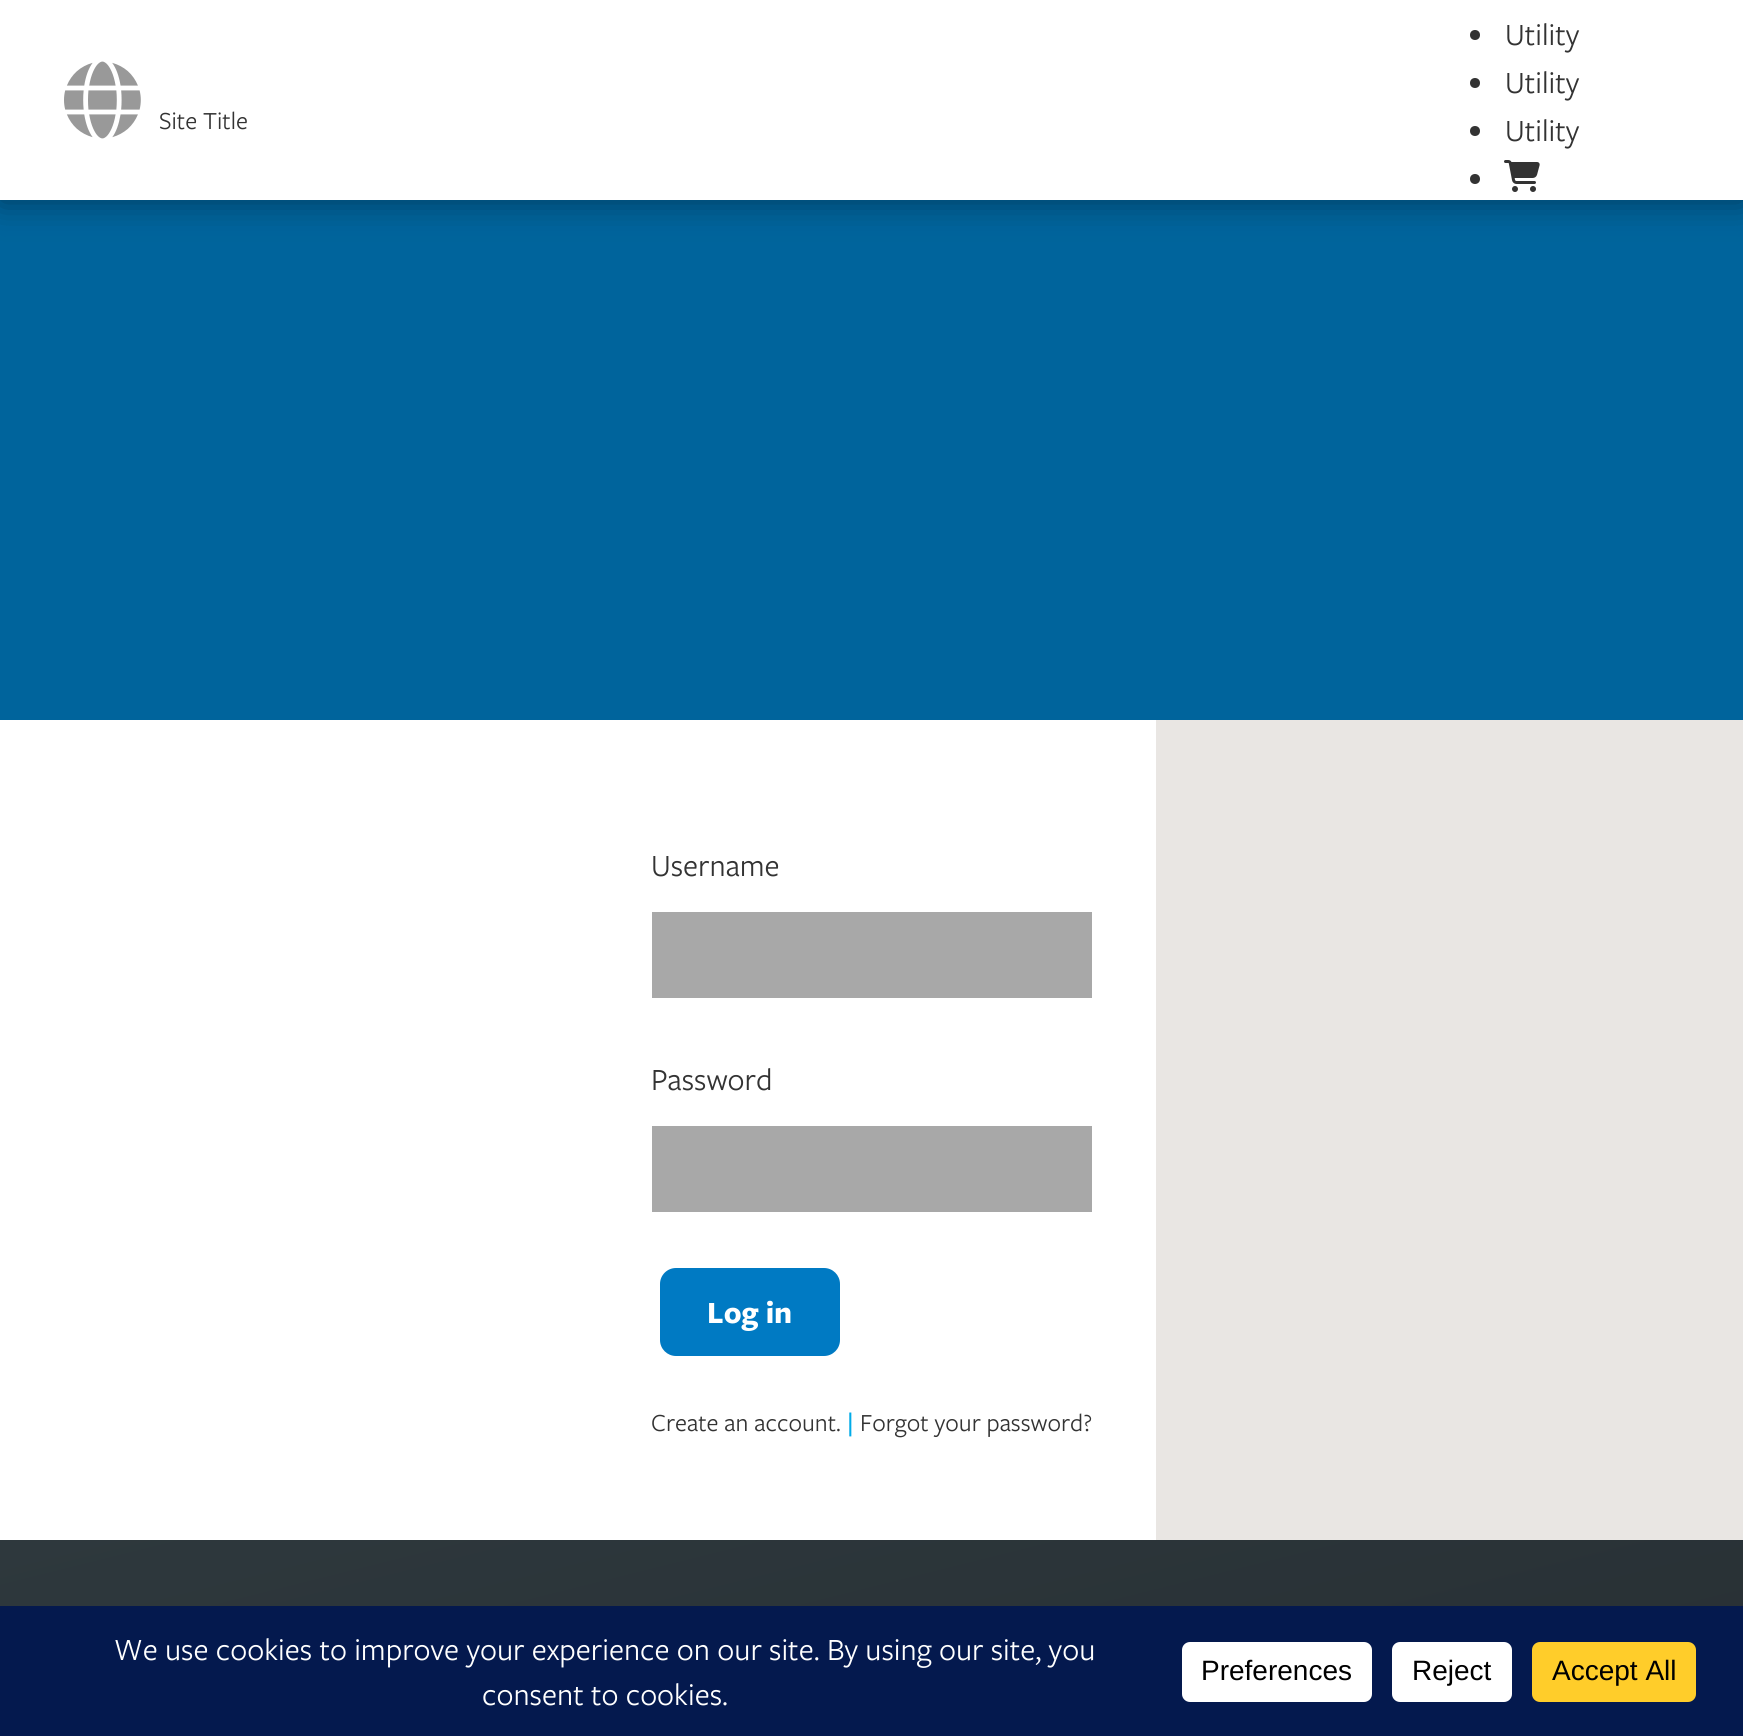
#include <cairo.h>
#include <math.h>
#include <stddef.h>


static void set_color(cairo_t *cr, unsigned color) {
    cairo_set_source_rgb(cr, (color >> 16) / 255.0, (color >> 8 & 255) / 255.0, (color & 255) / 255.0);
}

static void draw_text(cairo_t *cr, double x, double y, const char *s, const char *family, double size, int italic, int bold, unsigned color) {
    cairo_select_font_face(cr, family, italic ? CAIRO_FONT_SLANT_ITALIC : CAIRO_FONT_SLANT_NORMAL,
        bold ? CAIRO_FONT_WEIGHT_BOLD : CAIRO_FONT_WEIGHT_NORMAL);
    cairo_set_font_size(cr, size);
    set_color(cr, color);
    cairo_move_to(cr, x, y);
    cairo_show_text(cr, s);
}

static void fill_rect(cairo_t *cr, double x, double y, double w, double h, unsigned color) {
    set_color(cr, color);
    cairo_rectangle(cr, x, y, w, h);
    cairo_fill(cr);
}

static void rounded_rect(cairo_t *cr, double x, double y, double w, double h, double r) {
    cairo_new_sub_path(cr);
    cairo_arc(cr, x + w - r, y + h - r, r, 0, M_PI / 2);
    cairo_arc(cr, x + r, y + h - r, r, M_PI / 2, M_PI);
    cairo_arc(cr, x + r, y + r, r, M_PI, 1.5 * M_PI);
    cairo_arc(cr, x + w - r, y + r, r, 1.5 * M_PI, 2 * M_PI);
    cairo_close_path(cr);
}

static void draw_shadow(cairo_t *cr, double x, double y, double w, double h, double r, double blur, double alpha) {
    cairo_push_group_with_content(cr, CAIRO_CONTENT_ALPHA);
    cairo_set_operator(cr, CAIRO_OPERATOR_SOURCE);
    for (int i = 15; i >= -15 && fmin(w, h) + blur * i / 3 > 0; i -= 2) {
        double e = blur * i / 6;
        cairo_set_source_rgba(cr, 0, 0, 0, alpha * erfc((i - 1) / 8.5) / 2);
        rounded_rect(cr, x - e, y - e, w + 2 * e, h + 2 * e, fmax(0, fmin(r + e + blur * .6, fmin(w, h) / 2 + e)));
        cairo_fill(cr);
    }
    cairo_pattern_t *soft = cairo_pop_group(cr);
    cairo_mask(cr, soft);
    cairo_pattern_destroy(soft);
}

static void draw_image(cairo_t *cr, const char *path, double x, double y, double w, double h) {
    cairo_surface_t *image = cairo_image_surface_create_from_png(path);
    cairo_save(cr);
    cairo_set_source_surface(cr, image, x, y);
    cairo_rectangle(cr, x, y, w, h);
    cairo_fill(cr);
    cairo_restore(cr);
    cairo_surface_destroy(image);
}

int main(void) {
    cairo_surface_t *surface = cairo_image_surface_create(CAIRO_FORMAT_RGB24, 1743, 1736);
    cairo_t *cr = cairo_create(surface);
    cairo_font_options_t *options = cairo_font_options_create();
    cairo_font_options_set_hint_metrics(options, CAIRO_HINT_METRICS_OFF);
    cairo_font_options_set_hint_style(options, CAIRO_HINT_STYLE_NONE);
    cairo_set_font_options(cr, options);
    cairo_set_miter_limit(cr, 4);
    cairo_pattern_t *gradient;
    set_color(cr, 0xFFFFFF);
    cairo_paint(cr);
    fill_rect(cr, 0, 200, 1743, 520, 0x00649C);
    set_color(cr, 0x000000);
    draw_shadow(cr, 0, 2, 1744, 200, 0, 16, 0.4);
    fill_rect(cr, 0, 0, 1743, 200, 0xFFFFFF);
    draw_image(cr, "assets/img1.png", 64, 61, 77, 78);
    draw_text(cr, 159, 129, "Site Title", "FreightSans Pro", 25.5, 0, 0, 0x333333);
    cairo_new_path(cr);
    cairo_arc(cr, 1475, 35, 5, 0, 2 * M_PI);
    cairo_fill(cr);
    draw_text(cr, 1505, 45, "Utility", "FreightSans Pro", 32, 0, 0, 0x333333);
    cairo_new_path(cr);
    cairo_arc(cr, 1475, 83, 5, 0, 2 * M_PI);
    cairo_fill(cr);
    draw_text(cr, 1505, 93, "Utility", "FreightSans Pro", 32, 0, 0, 0x333333);
    cairo_new_path(cr);
    cairo_arc(cr, 1475, 131, 5, 0, 2 * M_PI);
    cairo_fill(cr);
    draw_text(cr, 1505, 141, "Utility", "FreightSans Pro", 32, 0, 0, 0x333333);
    cairo_new_path(cr);
    cairo_arc(cr, 1475, 179, 5, 0, 2 * M_PI);
    cairo_fill(cr);
    draw_image(cr, "assets/img2.png", 1504, 160, 36, 32);
    fill_rect(cr, 1156, 720, 587, 820, 0xE9E6E3);
    draw_text(cr, 651, 876, "Username", "FreightSans Pro", 32, 0, 0, 0x333333);
    fill_rect(cr, 652, 912, 440, 86, 0xA8A8A8);
    draw_text(cr, 651, 1090, "Password", "FreightSans Pro", 32, 0, 0, 0x333333);
    fill_rect(cr, 652, 1126, 440, 86, 0xA8A8A8);
    set_color(cr, 0x007AC3);
    rounded_rect(cr, 660, 1268, 180, 88, 16);
    cairo_fill(cr);
    draw_text(cr, 707, 1323, "Log in", "FreightSans Pro", 32, 0, 1, 0xFFFFFF);
    draw_text(cr, 651, 1431, "Create an account.", "FreightSans Pro", 25.5, 0, 0, 0x333333);
    draw_text(cr, 847, 1431, "|", "Liberation Sans", 25.5, 0, 0, 0x01ABE8);
    draw_text(cr, 860, 1431, "Forgot your password?", "FreightSans Pro", 25.5, 0, 0, 0x333333);
    gradient = cairo_pattern_create_linear(751, 1353, 993, 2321);
    cairo_pattern_add_color_stop_rgba(gradient, 0, 0.18, 0.22, 0.239, 1);
    cairo_pattern_add_color_stop_rgba(gradient, 1, 0.137, 0.165, 0.18, 1);
    cairo_set_source(cr, gradient);
    cairo_pattern_destroy(gradient);
    cairo_rectangle(cr, 0, 1540, 1743, 66);
    cairo_fill(cr);
    fill_rect(cr, 0, 1606, 1743, 130, 0x04194E);
    draw_text(cr, 114, 1660, "We use cookies to improve your experience on our site. By using our site, you", "FreightSans Pro", 32, 0, 0, 0xFFFFFF);
    draw_text(cr, 482, 1705, "consent to cookies.", "FreightSans Pro", 32, 0, 0, 0xFFFFFF);
    rounded_rect(cr, 1182, 1642, 190, 60, 8);
    cairo_fill(cr);
    draw_text(cr, 1201, 1680, "Preferences", "Liberation Sans", 28, 0, 0, 0x000000);
    set_color(cr, 0xFFFFFF);
    rounded_rect(cr, 1392, 1642, 120, 60, 8);
    cairo_fill(cr);
    draw_text(cr, 1412, 1680, "Reject", "Liberation Sans", 28, 0, 0, 0x000000);
    set_color(cr, 0xFFCD2A);
    rounded_rect(cr, 1532, 1642, 164, 60, 8);
    cairo_fill(cr);
    draw_text(cr, 1552, 1680, "Accept All", "Liberation Sans", 28, 0, 0, 0x000000);
    cairo_surface_write_to_png(surface, "output.png");
    cairo_font_options_destroy(options);
    cairo_destroy(cr);
    cairo_surface_destroy(surface);
    return 0;
}
